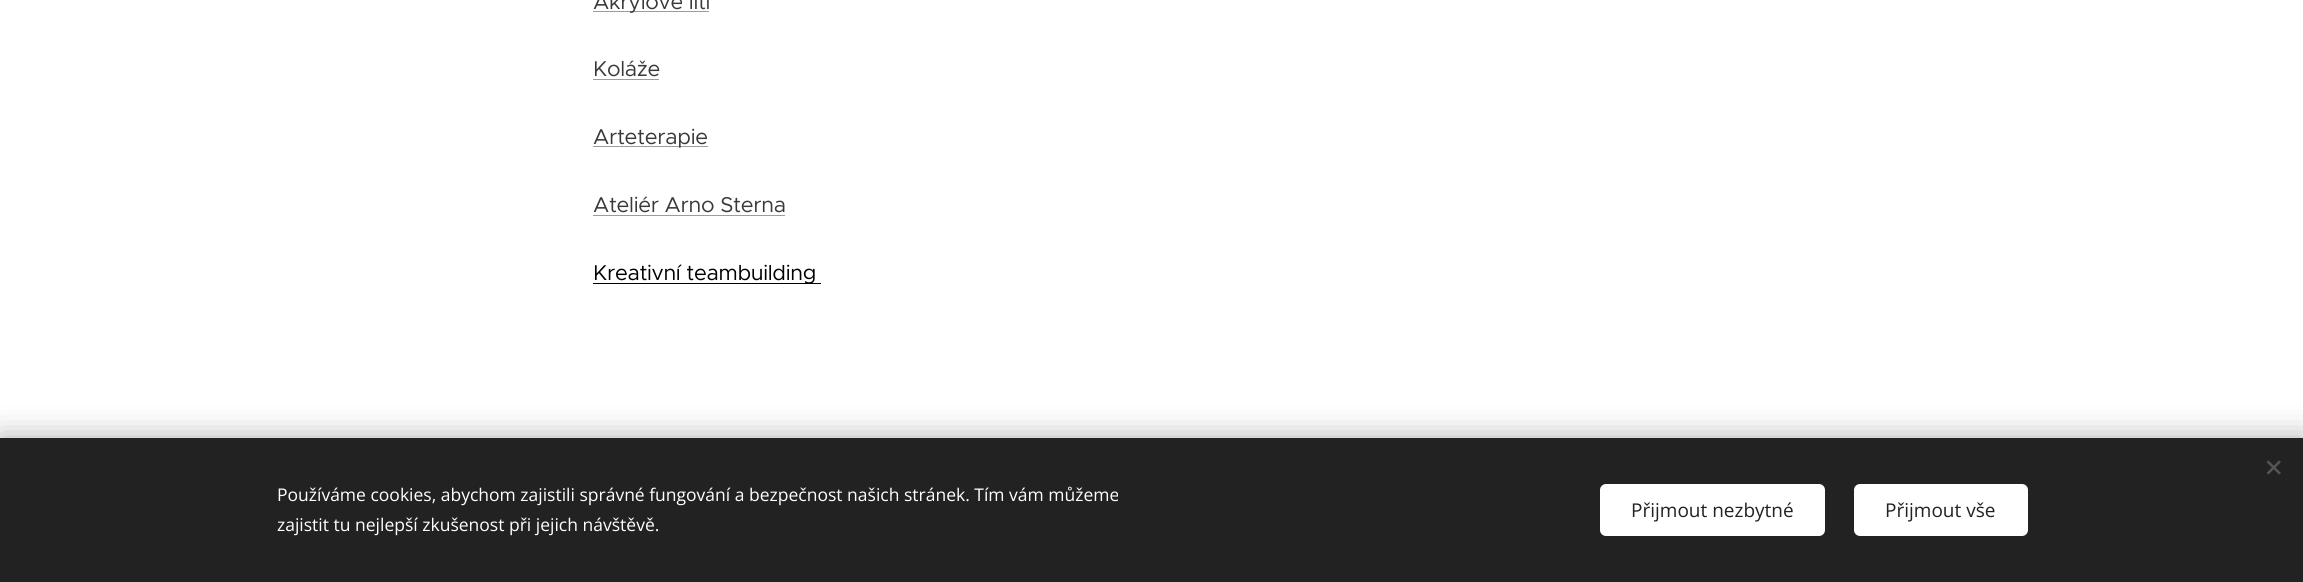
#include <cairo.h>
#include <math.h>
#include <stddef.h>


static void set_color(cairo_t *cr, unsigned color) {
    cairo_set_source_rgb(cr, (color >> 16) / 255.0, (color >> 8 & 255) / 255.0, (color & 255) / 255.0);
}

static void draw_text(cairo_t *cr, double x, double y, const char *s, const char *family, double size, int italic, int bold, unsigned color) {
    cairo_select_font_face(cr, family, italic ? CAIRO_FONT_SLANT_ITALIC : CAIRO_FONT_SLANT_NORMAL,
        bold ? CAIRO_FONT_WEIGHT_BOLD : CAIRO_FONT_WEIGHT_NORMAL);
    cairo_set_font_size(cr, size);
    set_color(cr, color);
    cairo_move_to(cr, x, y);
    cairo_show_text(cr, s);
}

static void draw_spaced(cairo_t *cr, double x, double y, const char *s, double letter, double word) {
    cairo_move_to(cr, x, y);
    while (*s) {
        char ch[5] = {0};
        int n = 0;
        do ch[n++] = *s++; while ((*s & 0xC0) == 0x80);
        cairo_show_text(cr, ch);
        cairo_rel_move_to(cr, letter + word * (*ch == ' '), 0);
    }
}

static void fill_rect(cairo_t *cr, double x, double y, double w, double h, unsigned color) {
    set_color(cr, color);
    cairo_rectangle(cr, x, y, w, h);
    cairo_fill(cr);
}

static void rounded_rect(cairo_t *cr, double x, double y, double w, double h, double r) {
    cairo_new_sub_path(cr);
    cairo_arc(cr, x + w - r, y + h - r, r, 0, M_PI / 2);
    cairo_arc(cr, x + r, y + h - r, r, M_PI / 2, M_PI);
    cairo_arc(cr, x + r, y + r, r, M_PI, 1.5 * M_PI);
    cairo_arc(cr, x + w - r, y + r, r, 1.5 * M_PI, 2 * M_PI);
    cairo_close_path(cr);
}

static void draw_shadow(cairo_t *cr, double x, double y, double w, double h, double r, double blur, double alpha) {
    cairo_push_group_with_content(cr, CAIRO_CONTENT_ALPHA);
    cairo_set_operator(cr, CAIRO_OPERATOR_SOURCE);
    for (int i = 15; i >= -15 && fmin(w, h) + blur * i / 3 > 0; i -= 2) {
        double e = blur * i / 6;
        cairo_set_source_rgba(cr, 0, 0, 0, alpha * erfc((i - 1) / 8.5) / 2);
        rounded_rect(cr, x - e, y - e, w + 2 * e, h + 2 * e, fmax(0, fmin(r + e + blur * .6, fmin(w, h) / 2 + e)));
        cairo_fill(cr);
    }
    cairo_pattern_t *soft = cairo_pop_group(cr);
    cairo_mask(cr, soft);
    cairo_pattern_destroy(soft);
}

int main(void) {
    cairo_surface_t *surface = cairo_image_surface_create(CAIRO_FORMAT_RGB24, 2303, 582);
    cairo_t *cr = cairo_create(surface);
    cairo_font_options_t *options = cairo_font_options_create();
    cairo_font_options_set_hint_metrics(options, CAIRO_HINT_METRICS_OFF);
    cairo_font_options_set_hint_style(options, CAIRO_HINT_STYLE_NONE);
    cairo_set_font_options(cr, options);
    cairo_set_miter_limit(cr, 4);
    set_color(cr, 0xFFFFFF);
    cairo_paint(cr);
    fill_rect(cr, 593, 11, 116, 1, 0x9C9C9C);
    cairo_select_font_face(cr, "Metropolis", CAIRO_FONT_SLANT_NORMAL, CAIRO_FONT_WEIGHT_NORMAL);
    cairo_set_font_size(cr, 21.5);
    set_color(cr, 0x393939);
    draw_spaced(cr, 593, 9, "Akrylové lití", -0.3, 0);
    draw_spaced(cr, 593, 76, "Koláže", -0.3, 0);
    fill_rect(cr, 593, 79, 66, 1, 0x9C9C9C);
    fill_rect(cr, 593, 146, 115, 1, 0x9C9C9C);
    set_color(cr, 0x393939);
    draw_spaced(cr, 593, 144, "Arteterapie", -0.3, 0);
    draw_spaced(cr, 593, 212, "Ateliér Arno Sterna", -0.3, 0);
    fill_rect(cr, 593, 215, 192, 1, 0x9C9C9C);
    fill_rect(cr, 593, 283, 228, 1, 0x000000);
    draw_spaced(cr, 593, 280, "Kreativní teambuilding", -0.3, 0);
    set_color(cr, 0x000000);
    draw_shadow(cr, 0, 438, 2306, 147, 0, 15.5, 0.33);
    fill_rect(cr, 0, 438, 2303, 144, 0x222222);
    set_color(cr, 0x555555);
    cairo_new_path(cr);
    cairo_move_to(cr, 2266.5, 473);
    cairo_line_to(cr, 2279, 460.5);
    cairo_line_to(cr, 2281, 462);
    cairo_line_to(cr, 2268.5, 474.5);
    cairo_close_path(cr);
    cairo_fill(cr);
    cairo_new_path(cr);
    cairo_move_to(cr, 2268.5, 460.5);
    cairo_line_to(cr, 2281, 473);
    cairo_line_to(cr, 2279, 474.5);
    cairo_line_to(cr, 2266.5, 462);
    cairo_close_path(cr);
    cairo_fill(cr);
    draw_text(cr, 277, 501, "Používáme cookies, abychom zajistili správné fungování a bezpečnost našich stránek. Tím vám můžeme", "Open Sans", 17.5, 0, 0, 0xFFFFFF);
    draw_text(cr, 277, 531, "zajistit tu nejlepší zkušenost při jejich návštěvě.", "Open Sans", 17.5, 0, 0, 0xFFFFFF);
    rounded_rect(cr, 1600, 484, 225, 52, 6);
    cairo_fill(cr);
    draw_text(cr, 1631, 517, "Přijmout nezbytné", "Open Sans", 19, 0, 0, 0x222222);
    set_color(cr, 0xFFFFFF);
    rounded_rect(cr, 1854, 484, 174, 52, 6);
    cairo_fill(cr);
    draw_text(cr, 1885, 517, "Přijmout vše", "Open Sans", 19, 0, 0, 0x222222);
    cairo_surface_write_to_png(surface, "output.png");
    cairo_font_options_destroy(options);
    cairo_destroy(cr);
    cairo_surface_destroy(surface);
    return 0;
}
